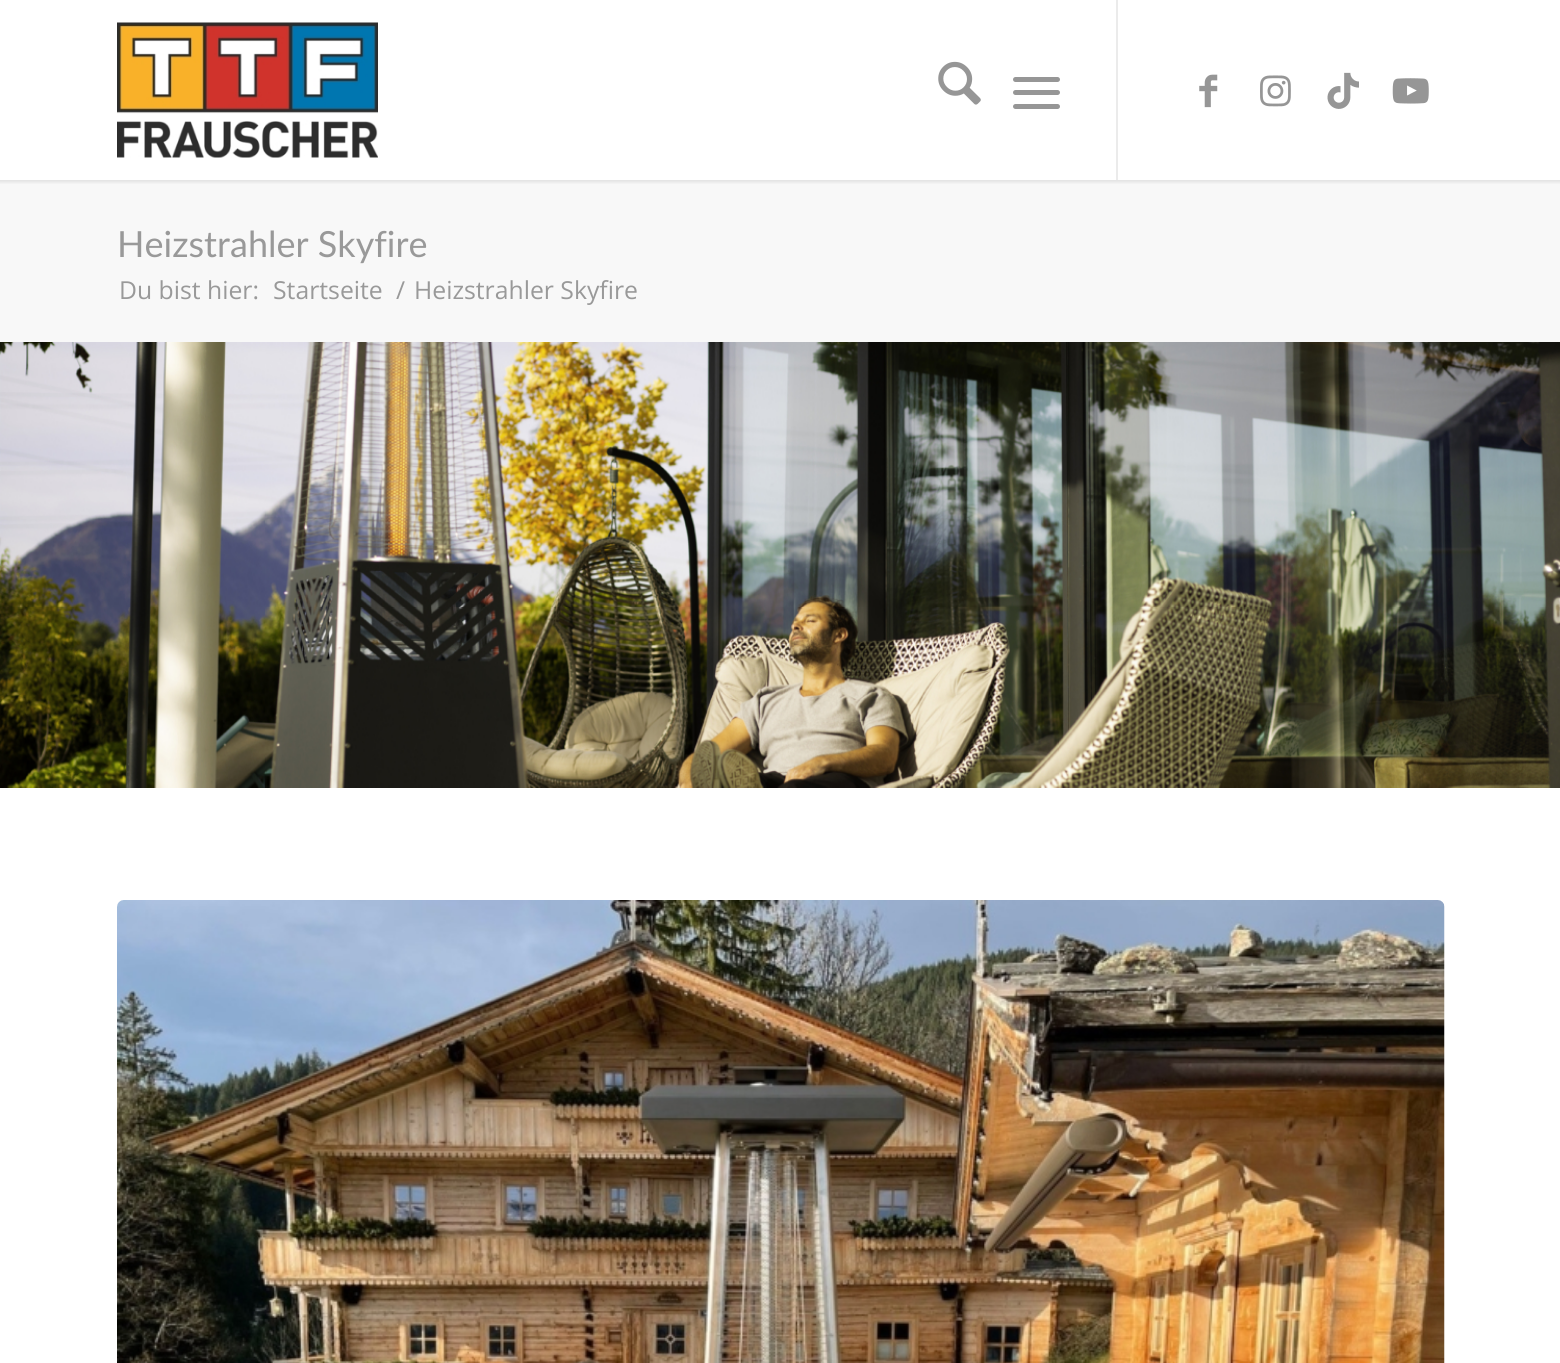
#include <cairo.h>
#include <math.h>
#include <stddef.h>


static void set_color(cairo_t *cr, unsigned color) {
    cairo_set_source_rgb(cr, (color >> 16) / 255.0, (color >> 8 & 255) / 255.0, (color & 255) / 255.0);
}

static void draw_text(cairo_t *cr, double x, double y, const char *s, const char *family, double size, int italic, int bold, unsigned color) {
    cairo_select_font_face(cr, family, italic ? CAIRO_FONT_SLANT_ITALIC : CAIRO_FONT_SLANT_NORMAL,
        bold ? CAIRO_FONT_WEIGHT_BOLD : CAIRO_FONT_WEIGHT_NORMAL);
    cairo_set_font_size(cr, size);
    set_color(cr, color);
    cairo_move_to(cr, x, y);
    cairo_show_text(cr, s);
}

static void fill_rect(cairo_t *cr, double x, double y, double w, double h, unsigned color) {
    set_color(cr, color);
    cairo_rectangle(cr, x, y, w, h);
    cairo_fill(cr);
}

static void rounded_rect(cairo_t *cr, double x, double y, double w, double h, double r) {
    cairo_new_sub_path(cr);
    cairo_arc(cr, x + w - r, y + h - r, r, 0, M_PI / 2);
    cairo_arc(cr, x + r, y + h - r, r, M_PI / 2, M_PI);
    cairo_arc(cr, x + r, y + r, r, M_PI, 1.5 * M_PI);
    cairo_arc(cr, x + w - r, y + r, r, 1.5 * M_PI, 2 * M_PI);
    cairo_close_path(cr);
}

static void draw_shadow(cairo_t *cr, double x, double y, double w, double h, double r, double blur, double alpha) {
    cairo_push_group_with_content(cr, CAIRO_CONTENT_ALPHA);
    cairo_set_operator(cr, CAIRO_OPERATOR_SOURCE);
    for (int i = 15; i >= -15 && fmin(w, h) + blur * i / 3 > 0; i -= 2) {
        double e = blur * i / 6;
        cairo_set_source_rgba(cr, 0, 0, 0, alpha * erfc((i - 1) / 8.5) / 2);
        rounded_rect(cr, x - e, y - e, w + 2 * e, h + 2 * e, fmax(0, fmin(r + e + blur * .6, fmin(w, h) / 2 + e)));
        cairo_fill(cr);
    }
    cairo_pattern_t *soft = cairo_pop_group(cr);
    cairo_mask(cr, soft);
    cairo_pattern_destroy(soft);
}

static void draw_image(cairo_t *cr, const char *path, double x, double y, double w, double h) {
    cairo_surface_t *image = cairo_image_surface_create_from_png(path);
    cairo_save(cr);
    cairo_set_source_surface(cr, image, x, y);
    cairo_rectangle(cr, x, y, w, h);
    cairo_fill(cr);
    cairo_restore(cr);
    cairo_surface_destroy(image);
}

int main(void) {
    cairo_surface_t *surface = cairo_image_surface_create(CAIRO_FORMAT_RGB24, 1560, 1363);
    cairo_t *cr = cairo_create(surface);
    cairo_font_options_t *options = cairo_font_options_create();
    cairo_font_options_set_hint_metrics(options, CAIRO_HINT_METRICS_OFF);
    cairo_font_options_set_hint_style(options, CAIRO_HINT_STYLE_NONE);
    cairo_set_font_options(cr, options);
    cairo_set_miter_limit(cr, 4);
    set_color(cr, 0xFFFFFF);
    cairo_paint(cr);
    fill_rect(cr, 0, 180, 1560, 162, 0xF8F8F8);
    cairo_save(cr);
    cairo_rectangle(cr, 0, 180, 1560, 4);
    cairo_clip(cr);
    set_color(cr, 0x000000);
    draw_shadow(cr, -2, -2, 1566, 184, 0, 2, 0.1);
    cairo_restore(cr);
    draw_image(cr, "assets/img1.png", 117, 22, 261, 136);
    fill_rect(cr, 1116, 0, 2, 180, 0xEBEBEB);
    draw_image(cr, "assets/img2.png", 938, 61, 43, 44);
    set_color(cr, 0x969696);
    rounded_rect(cr, 1013, 90, 47, 5, 2.5);
    cairo_fill(cr);
    rounded_rect(cr, 1013, 77, 47, 5, 2.5);
    cairo_fill(cr);
    rounded_rect(cr, 1013, 104, 47, 5, 2.5);
    cairo_fill(cr);
    draw_image(cr, "assets/img3.png", 1199, 74, 19, 34);
    draw_image(cr, "assets/img4.png", 1260, 75, 31, 32);
    draw_image(cr, "assets/img5.png", 1327, 72, 32, 37);
    draw_image(cr, "assets/img6.png", 1392, 78, 37, 26);
    draw_text(cr, 117, 257, "Heizstrahler Skyfire", "Lato", 36, 0, 0, 0x999999);
    draw_text(cr, 119, 299, "Du bist hier:", "Open Sans", 24.75, 0, 0, 0x999999);
    draw_text(cr, 273, 299, "Startseite", "Open Sans", 24.75, 0, 0, 0x999999);
    draw_text(cr, 396, 299, "/", "Open Sans", 24.75, 0, 0, 0x999999);
    draw_text(cr, 414, 299, "Heizstrahler Skyfire", "Open Sans", 24.75, 0, 0, 0x999999);
    draw_image(cr, "assets/img7.png", 0, 342, 1560, 446);
    draw_image(cr, "assets/img8.png", 117, 900, 1328, 463);
    cairo_surface_write_to_png(surface, "output.png");
    cairo_font_options_destroy(options);
    cairo_destroy(cr);
    cairo_surface_destroy(surface);
    return 0;
}
